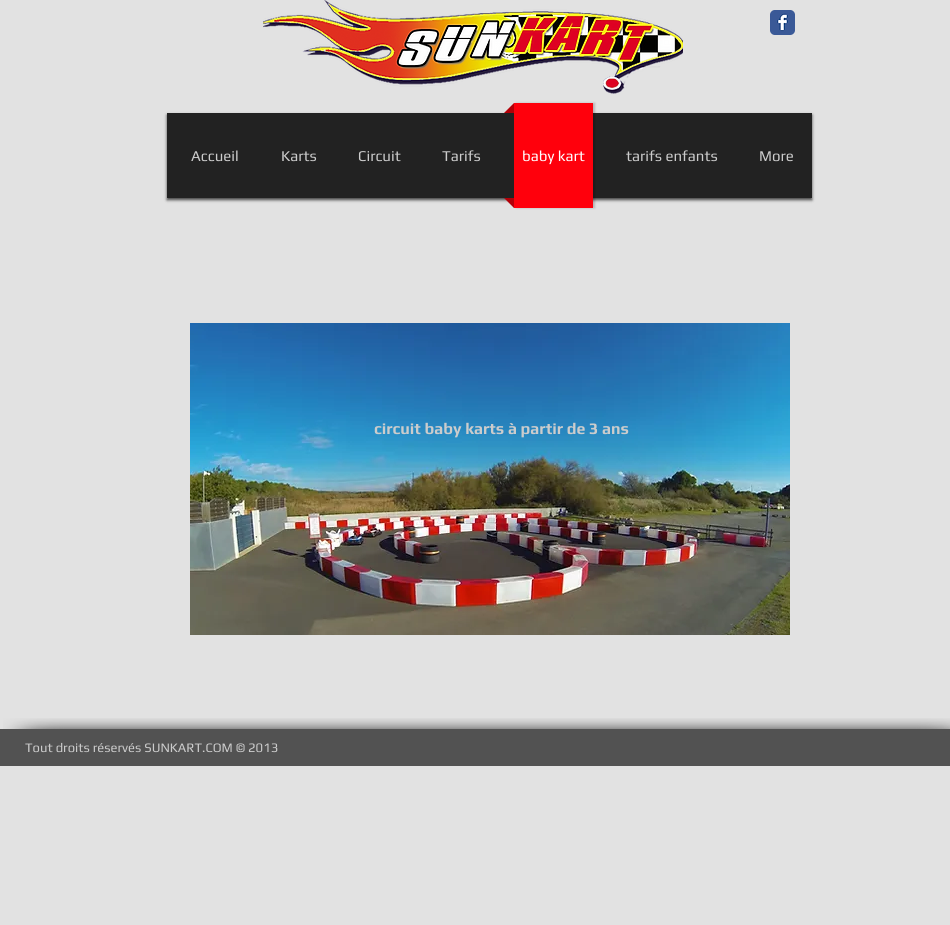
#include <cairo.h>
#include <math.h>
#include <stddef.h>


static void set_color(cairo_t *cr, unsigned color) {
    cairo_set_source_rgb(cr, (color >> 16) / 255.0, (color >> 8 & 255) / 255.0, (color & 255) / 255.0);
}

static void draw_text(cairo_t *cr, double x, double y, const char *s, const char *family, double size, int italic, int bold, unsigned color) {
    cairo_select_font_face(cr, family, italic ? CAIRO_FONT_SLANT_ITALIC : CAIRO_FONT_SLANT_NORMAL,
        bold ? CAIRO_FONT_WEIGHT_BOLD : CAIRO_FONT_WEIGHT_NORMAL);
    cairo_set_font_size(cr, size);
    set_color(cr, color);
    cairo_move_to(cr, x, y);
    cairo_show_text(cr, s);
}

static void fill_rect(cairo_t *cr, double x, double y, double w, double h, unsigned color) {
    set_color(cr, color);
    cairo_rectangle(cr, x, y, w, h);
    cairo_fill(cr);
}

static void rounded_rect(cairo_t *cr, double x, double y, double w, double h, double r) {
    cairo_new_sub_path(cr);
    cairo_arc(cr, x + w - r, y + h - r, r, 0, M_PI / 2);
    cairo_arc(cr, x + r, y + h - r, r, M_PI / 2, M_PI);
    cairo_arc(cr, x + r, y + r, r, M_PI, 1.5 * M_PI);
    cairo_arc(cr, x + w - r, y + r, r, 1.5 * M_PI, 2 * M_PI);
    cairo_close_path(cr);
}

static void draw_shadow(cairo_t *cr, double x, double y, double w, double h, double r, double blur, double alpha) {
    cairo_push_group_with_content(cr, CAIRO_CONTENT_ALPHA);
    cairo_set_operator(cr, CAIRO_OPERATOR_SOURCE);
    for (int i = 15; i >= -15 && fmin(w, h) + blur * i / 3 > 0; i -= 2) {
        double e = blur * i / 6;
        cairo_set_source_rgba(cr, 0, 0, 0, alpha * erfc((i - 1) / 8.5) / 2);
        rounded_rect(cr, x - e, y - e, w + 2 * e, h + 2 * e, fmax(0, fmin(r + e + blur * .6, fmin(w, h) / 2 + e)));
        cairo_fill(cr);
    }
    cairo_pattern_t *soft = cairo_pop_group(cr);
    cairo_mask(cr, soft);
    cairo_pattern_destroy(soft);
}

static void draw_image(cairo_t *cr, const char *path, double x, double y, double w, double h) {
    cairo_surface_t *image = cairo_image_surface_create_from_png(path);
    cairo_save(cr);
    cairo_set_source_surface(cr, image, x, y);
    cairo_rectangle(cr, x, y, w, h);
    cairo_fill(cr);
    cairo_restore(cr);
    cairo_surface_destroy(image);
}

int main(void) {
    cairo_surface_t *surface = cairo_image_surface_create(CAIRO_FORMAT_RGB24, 950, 925);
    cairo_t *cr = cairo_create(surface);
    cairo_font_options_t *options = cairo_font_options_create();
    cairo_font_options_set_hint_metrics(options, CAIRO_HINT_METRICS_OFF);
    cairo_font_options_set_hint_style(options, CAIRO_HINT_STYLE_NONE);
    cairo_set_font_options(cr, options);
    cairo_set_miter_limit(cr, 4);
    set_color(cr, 0xE2E2E2);
    cairo_paint(cr);
    draw_image(cr, "assets/img1.png", 263, 0, 420, 94);
    draw_image(cr, "assets/img2.png", 770, 10, 25, 25);
    set_color(cr, 0x000000);
    draw_shadow(cr, 167, 115, 645, 85, 0, 1.5, 0.7);
    fill_rect(cr, 167, 113, 645, 85, 0x222222);
    draw_text(cr, 191, 161, "Accueil", "Play", 15, 0, 0, 0xCCCCCC);
    draw_text(cr, 281, 161, "Karts", "Play", 15, 0, 0, 0xCCCCCC);
    draw_text(cr, 358, 161, "Circuit", "Play", 15, 0, 0, 0xCCCCCC);
    draw_text(cr, 442, 161, "Tarifs", "Play", 15, 0, 0, 0xCCCCCC);
    set_color(cr, 0x000000);
    draw_shadow(cr, 516, 103, 79, 105, 0, 1, 0.2);
    set_color(cr, 0xB30008);
    cairo_new_path(cr);
    cairo_move_to(cr, 514, 113);
    cairo_line_to(cr, 504, 113);
    cairo_line_to(cr, 514, 103);
    cairo_close_path(cr);
    cairo_fill(cr);
    fill_rect(cr, 514, 103, 79, 105, 0xFF000C);
    set_color(cr, 0xB30008);
    cairo_new_path(cr);
    cairo_move_to(cr, 504, 198);
    cairo_line_to(cr, 514, 198);
    cairo_line_to(cr, 514, 208);
    cairo_close_path(cr);
    cairo_fill(cr);
    draw_text(cr, 522, 161, "baby kart", "Play", 15, 0, 0, 0xFFFFFF);
    draw_text(cr, 626, 161, "tarifs enfants", "Play", 15, 0, 0, 0xCCCCCC);
    draw_text(cr, 759, 161, "More", "Play", 15, 0, 0, 0xCCCCCC);
    draw_image(cr, "assets/img3.png", 190, 323, 600, 312);
    draw_text(cr, 374, 434, "circuit baby karts à partir de 3 ans", "Play", 16, 0, 1, 0xCCCCCC);
    fill_rect(cr, 0, 729, 950, 37, 0x525252);
    draw_image(cr, "assets/img4.png", 3, 718, 97, 11);
    draw_image(cr, "assets/img5.png", 100, 718, 780, 11);
    draw_image(cr, "assets/img6.png", 880, 718, 70, 11);
    draw_text(cr, 25, 752, "Tout droits réservés SUNKART.COM © 2013", "Play", 13, 0, 0, 0xCCCCCC);
    cairo_surface_write_to_png(surface, "output.png");
    cairo_font_options_destroy(options);
    cairo_destroy(cr);
    cairo_surface_destroy(surface);
    return 0;
}
